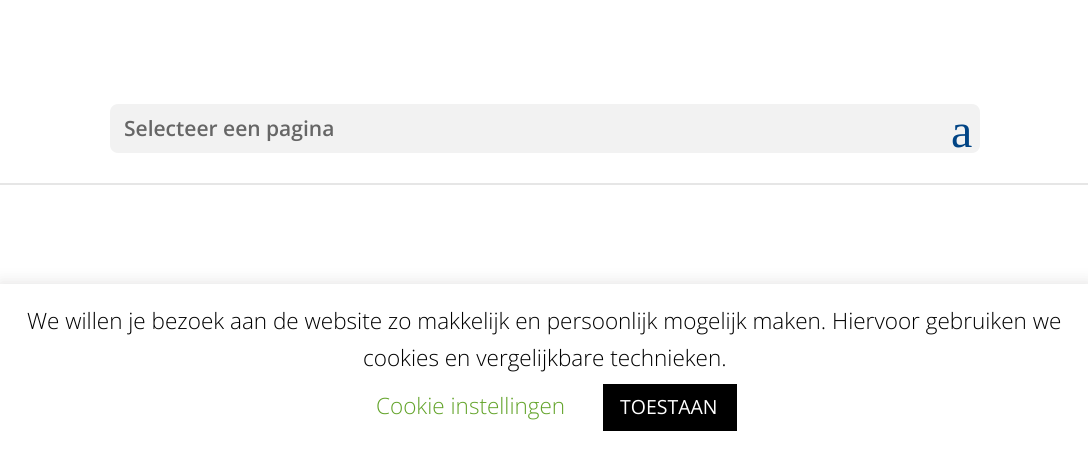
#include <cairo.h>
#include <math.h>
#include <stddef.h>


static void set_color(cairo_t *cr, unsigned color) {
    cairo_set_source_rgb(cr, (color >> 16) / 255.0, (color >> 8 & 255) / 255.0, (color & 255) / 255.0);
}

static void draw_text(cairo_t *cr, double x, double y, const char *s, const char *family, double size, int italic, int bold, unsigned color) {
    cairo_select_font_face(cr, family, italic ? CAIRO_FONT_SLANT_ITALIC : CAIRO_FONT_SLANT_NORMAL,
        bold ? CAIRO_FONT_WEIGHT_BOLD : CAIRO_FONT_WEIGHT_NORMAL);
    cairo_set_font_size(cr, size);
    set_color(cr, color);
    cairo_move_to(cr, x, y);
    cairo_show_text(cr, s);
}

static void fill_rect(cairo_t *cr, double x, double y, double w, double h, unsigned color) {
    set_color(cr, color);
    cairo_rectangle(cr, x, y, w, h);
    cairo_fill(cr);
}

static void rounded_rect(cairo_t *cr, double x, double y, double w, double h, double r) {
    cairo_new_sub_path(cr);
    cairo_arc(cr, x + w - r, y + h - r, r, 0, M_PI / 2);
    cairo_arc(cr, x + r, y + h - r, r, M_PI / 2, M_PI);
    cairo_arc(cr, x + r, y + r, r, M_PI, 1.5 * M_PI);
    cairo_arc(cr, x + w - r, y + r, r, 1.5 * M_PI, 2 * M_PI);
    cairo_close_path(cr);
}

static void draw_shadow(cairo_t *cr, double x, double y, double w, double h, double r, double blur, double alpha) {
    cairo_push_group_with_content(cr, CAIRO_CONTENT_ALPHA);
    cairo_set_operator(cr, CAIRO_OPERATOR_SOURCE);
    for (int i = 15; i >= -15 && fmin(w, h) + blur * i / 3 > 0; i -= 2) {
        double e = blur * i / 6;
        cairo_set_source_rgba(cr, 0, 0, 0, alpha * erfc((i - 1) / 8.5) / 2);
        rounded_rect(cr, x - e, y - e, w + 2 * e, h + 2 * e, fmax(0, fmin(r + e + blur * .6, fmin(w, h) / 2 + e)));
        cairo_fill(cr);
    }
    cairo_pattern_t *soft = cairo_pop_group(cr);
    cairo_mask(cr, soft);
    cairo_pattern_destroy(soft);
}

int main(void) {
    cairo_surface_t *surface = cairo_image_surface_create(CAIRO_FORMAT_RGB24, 1088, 455);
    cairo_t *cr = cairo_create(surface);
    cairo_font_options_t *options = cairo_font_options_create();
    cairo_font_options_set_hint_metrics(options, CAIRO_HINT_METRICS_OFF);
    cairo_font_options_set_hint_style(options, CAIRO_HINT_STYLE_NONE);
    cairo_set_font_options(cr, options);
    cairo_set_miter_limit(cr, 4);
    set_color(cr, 0xFFFFFF);
    cairo_paint(cr);
    fill_rect(cr, 0, 183, 1088, 2, 0xE6E6E6);
    set_color(cr, 0xF2F2F2);
    rounded_rect(cr, 110, 104, 870, 49, 8);
    cairo_fill(cr);
    draw_text(cr, 124, 136, "Selecteer een pagina", "Open Sans SemiBold", 21, 0, 0, 0x666666);
    draw_text(cr, 951, 147, "a", "Liberation Serif", 48, 0, 0, 0x014485);
    set_color(cr, 0xACABAB);
    draw_shadow(cr, 0, 282, 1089, 173, 0, 7.5, 0.3);
    fill_rect(cr, 0, 284, 1088, 171, 0xFFFFFF);
    draw_text(cr, 27, 329, "We willen je bezoek aan de website zo makkelijk en persoonlijk mogelijk maken. Hiervoor gebruiken we", "Open Sans Light", 22.5, 0, 0, 0x000000);
    draw_text(cr, 363, 366, "cookies en vergelijkbare technieken.", "Open Sans Light", 22.5, 0, 0, 0x000000);
    draw_text(cr, 376, 414, "Cookie instellingen", "Open Sans Light", 22.5, 0, 0, 0x62A329);
    fill_rect(cr, 603, 384, 134, 47, 0x000000);
    draw_text(cr, 620, 414, "TOESTAAN", "Open Sans", 19.5, 0, 0, 0xFFFFFF);
    cairo_surface_write_to_png(surface, "output.png");
    cairo_font_options_destroy(options);
    cairo_destroy(cr);
    cairo_surface_destroy(surface);
    return 0;
}
